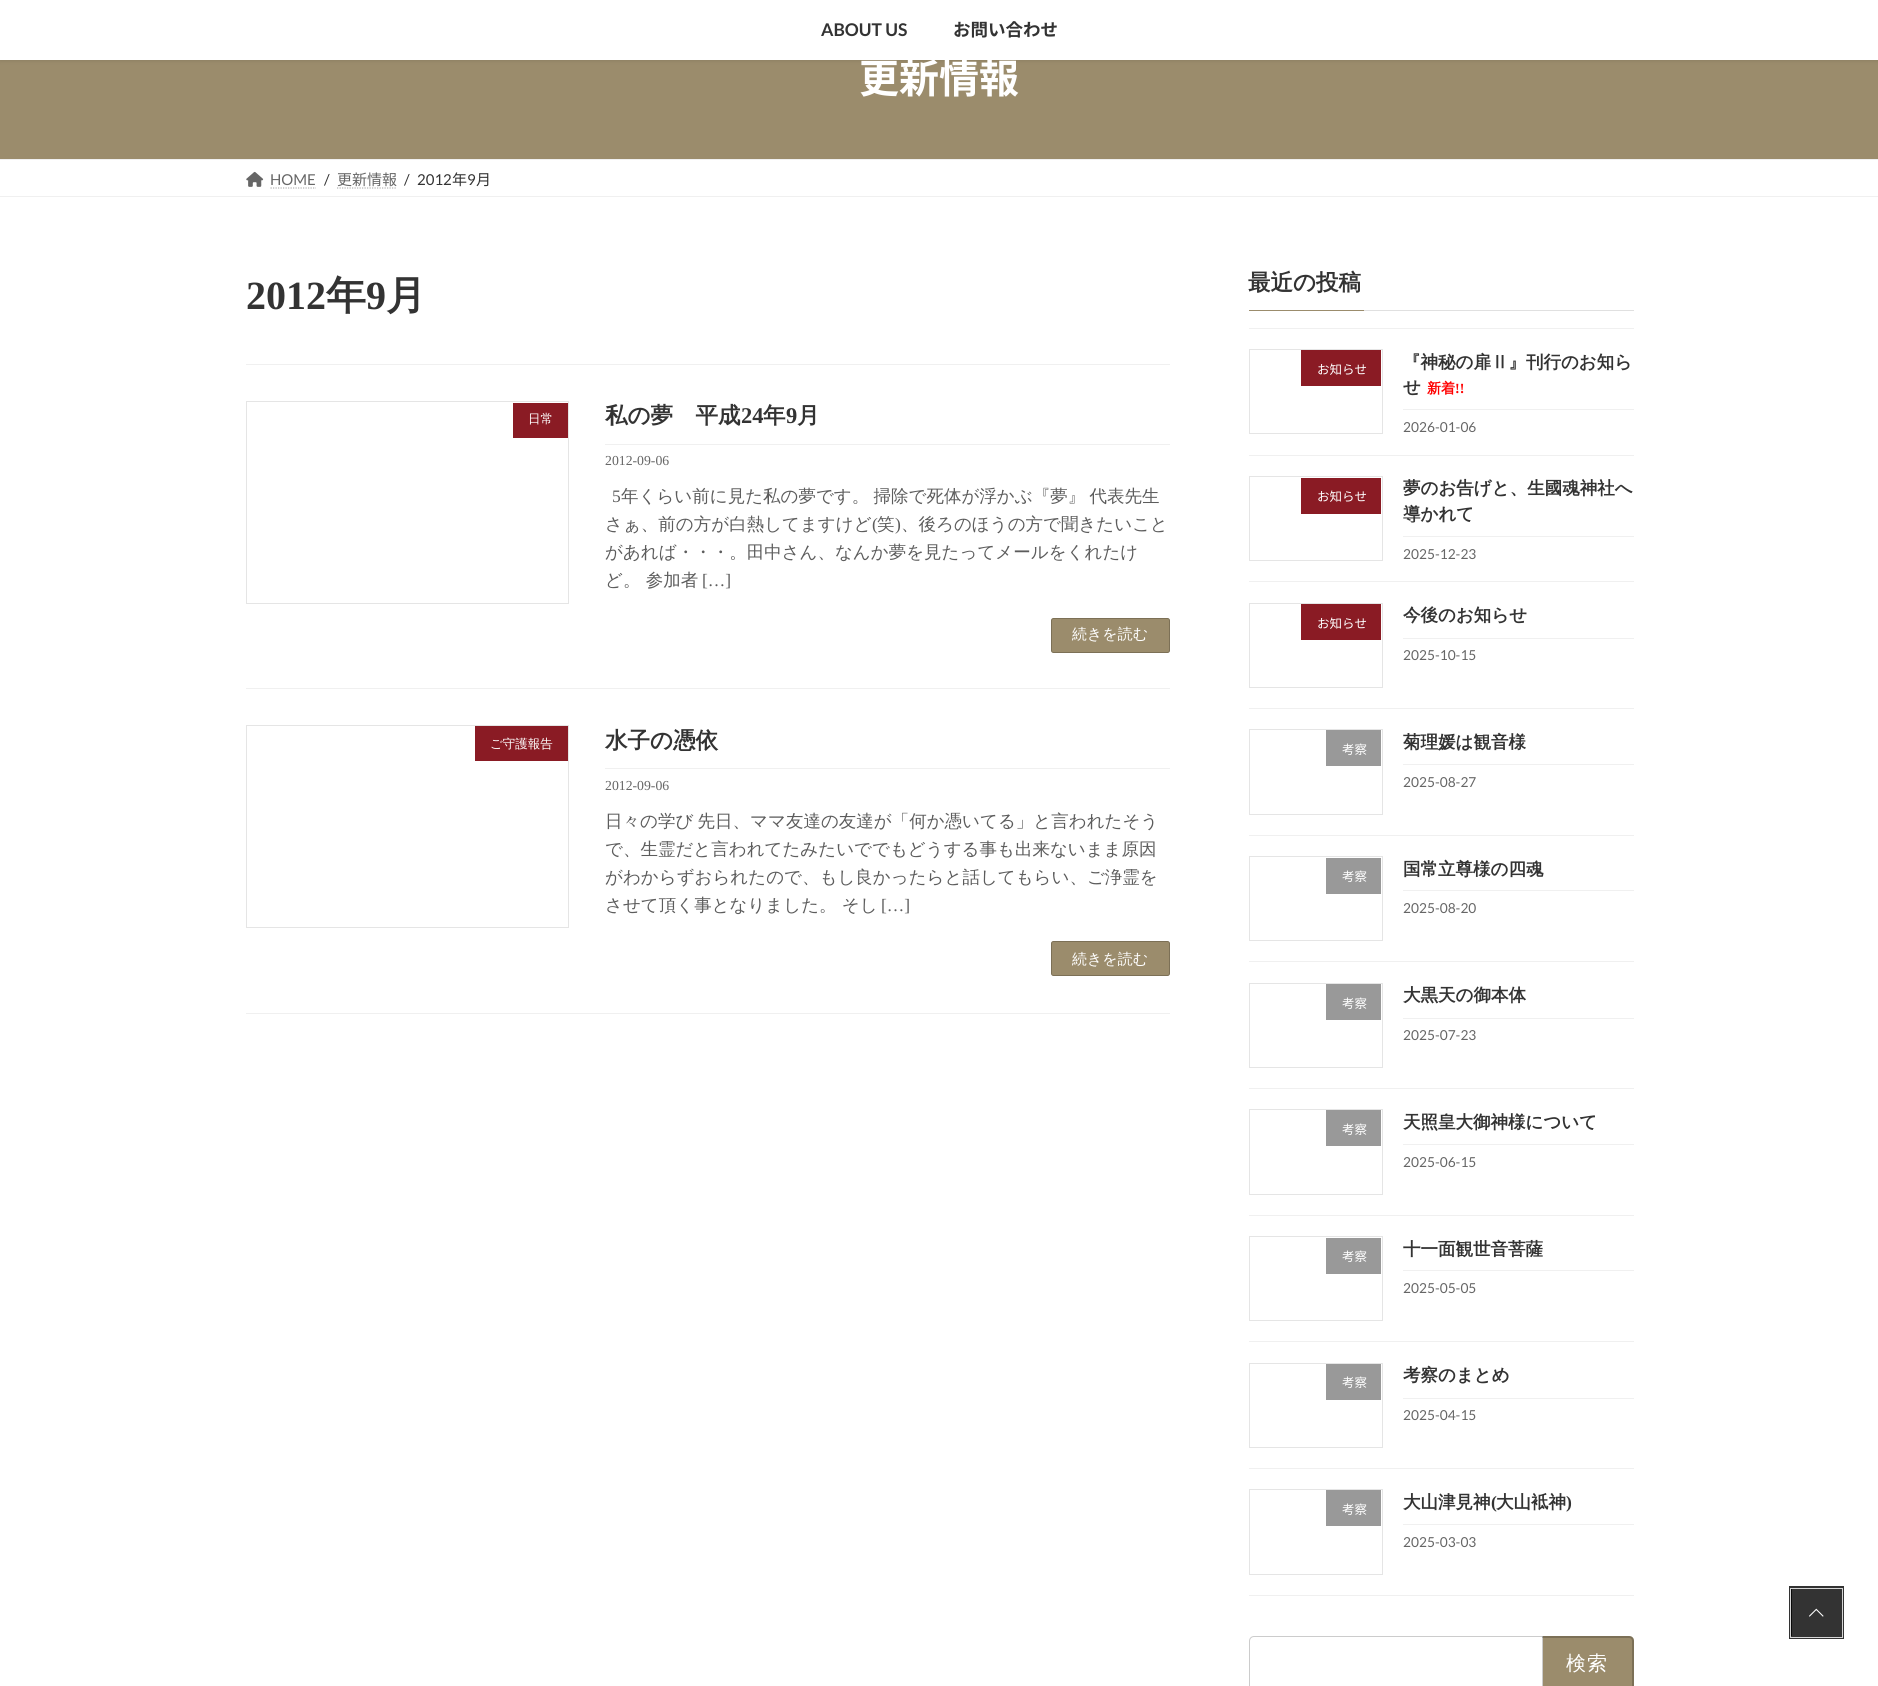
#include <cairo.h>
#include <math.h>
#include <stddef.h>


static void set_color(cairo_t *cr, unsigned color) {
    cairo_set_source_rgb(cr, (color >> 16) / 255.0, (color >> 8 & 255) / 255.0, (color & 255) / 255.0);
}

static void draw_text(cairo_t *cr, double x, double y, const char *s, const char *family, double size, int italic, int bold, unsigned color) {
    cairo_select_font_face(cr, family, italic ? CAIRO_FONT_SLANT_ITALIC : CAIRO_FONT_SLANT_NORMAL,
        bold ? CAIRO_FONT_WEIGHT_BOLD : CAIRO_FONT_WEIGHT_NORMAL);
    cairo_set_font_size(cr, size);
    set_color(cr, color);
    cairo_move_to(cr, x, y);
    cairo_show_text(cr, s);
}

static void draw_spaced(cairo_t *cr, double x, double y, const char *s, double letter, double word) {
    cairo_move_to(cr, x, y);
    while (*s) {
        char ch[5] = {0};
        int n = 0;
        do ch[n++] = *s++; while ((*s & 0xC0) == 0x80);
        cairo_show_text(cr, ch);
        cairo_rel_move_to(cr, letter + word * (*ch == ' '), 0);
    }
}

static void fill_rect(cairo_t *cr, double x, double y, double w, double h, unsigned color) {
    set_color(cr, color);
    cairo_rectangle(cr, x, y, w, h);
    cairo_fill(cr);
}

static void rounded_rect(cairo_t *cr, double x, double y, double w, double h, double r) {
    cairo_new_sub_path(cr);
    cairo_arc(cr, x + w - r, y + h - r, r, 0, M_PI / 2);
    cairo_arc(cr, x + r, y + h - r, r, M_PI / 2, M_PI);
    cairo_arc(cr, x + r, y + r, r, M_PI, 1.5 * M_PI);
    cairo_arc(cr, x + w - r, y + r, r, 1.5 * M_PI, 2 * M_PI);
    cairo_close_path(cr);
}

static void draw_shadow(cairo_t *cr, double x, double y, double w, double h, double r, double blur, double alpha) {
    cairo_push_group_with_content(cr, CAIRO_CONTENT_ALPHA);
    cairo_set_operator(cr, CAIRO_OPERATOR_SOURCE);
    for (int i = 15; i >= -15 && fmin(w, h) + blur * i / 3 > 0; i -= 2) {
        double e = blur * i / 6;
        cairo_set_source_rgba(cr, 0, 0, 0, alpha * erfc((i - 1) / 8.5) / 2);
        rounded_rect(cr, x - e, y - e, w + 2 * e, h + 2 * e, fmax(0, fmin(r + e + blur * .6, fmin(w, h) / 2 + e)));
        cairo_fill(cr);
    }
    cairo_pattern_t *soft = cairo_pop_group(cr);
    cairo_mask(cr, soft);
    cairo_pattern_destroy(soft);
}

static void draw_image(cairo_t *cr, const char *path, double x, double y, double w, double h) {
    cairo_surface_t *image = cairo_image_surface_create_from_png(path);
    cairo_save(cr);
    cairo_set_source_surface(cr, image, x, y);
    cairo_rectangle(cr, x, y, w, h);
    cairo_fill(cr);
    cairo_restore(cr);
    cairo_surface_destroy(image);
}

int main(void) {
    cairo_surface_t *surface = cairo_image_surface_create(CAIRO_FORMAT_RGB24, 1878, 1686);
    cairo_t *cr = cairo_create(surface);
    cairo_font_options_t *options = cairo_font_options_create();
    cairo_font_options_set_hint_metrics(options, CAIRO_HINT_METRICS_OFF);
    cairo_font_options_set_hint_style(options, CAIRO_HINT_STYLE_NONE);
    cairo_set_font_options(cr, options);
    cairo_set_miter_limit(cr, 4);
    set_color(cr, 0xFFFFFF);
    cairo_paint(cr);
    fill_rect(cr, 0, 60, 1878, 99, 0x9B8C6C);
    set_color(cr, 0x000000);
    draw_shadow(cr, 0, 1, 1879, 60, 0, 2, 0.1);
    fill_rect(cr, 0, 0, 1878, 60, 0xFFFFFF);
    draw_text(cr, 821, 36, "ABOUT US", "Lato", 17.5, 0, 1, 0x333333);
    draw_text(cr, 953, 36, "お問い合わせ", "Noto Sans JP", 17.5, 0, 1, 0x333333);
    draw_text(cr, 859, 93, "更新情報", "Noto Sans JP", 40, 0, 1, 0xFFFFFF);
    fill_rect(cr, 0, 159, 1878, 1, 0xF0F0F0);
    fill_rect(cr, 0, 196, 1878, 1, 0xF0F0F0);
    draw_image(cr, "assets/img1.png", 246, 171, 18, 16);
    draw_text(cr, 270, 185, "HOME", "Lato", 15, 0, 0, 0x666666);
    cairo_new_path(cr);
    cairo_move_to(cr, 270.5, 188);
    cairo_line_to(cr, 316, 188);
    set_color(cr, 0xB3B3B3);
    cairo_set_line_width(cr, 1.2);
    cairo_set_dash(cr, (double[]){1.25, 1.25}, 2, 0);
    cairo_stroke(cr);
    draw_text(cr, 324, 185, "/", "Lato", 15, 0, 0, 0x333333);
    draw_text(cr, 337, 185, "更新情報", "Noto Sans JP", 15, 0, 0, 0x666666);
    cairo_new_path(cr);
    cairo_move_to(cr, 337, 188);
    cairo_line_to(cr, 397, 188);
    set_color(cr, 0xB3B3B3);
    cairo_stroke(cr);
    draw_text(cr, 404, 185, "/", "Lato", 15, 0, 0, 0x333333);
    draw_text(cr, 417, 185, "2012", "Lato", 15, 0, 0, 0x333333);
    draw_text(cr, 452, 185, "年", "Noto Sans JP", 15, 0, 0, 0x333333);
    draw_text(cr, 467, 185, "9", "Lato", 15, 0, 0, 0x333333);
    draw_text(cr, 476, 185, "月", "Noto Sans JP", 15, 0, 0, 0x333333);
    draw_text(cr, 246, 309, "2012", "Liberation Serif", 40, 0, 1, 0x333333);
    draw_text(cr, 326, 309, "年", "WenQuanYi Zen Hei", 40, 0, 1, 0x333333);
    draw_text(cr, 366, 309, "9", "Liberation Serif", 40, 0, 1, 0x333333);
    draw_text(cr, 386, 309, "月", "WenQuanYi Zen Hei", 40, 0, 1, 0x333333);
    fill_rect(cr, 246, 364, 924, 1, 0xF0F0F0);
    fill_rect(cr, 246, 688, 924, 1, 0xF0F0F0);
    cairo_rectangle(cr, 246.5, 401.5, 322, 202);
    set_color(cr, 0xE5E5E5);
    cairo_set_line_width(cr, 1);
    cairo_set_dash(cr, NULL, 0, 0);
    cairo_stroke(cr);
    fill_rect(cr, 513, 403, 55, 35, 0x8A1B24);
    draw_text(cr, 528, 423, "日常", "WenQuanYi Zen Hei Medium", 12.5, 0, 0, 0xFFFFFF);
    fill_rect(cr, 605, 444, 565, 1, 0xF0F0F0);
    draw_text(cr, 605, 423, "私の夢　平成", "WenQuanYi Zen Hei", 22.5, 0, 1, 0x333333);
    draw_text(cr, 741, 423, "24", "Liberation Serif", 22.5, 0, 1, 0x333333);
    draw_text(cr, 763, 423, "年", "WenQuanYi Zen Hei", 22.5, 0, 1, 0x333333);
    draw_text(cr, 786, 423, "9", "Liberation Serif", 22.5, 0, 1, 0x333333);
    draw_text(cr, 797, 423, "月", "WenQuanYi Zen Hei", 22.5, 0, 1, 0x333333);
    draw_text(cr, 605, 465, "2012-09-06", "Liberation Serif", 13.75, 0, 0, 0x666666);
    draw_text(cr, 612, 502, "5", "Liberation Serif", 17.5, 0, 0, 0x5C5C5C);
    cairo_select_font_face(cr, "WenQuanYi Zen Hei Medium", CAIRO_FONT_SLANT_NORMAL, CAIRO_FONT_WEIGHT_NORMAL);
    draw_spaced(cr, 621, 502, "年くらい前に見た私の夢です。 掃除で死体が浮かぶ『夢』 代表先生", 0, -1);
    draw_text(cr, 605, 530, "さぁ、前の方が白熱してますけど", "WenQuanYi Zen Hei Medium", 17.5, 0, 0, 0x5C5C5C);
    draw_text(cr, 872, 530, "(", "Liberation Serif", 17.5, 0, 0, 0x5C5C5C);
    draw_text(cr, 877, 530, "笑", "WenQuanYi Zen Hei Medium", 17.5, 0, 0, 0x5C5C5C);
    draw_text(cr, 895, 530, ")", "Liberation Serif", 17.5, 0, 0, 0x5C5C5C);
    draw_text(cr, 901, 530, "、後ろのほうの方で聞きたいこと", "WenQuanYi Zen Hei Medium", 17.5, 0, 0, 0x5C5C5C);
    draw_text(cr, 605, 558, "があれば・・・。田中さん、なんか夢を見たってメールをくれたけ", "WenQuanYi Zen Hei Medium", 17.5, 0, 0, 0x5C5C5C);
    draw_text(cr, 605, 586, "ど。 参加者", "WenQuanYi Zen Hei Medium", 17.5, 0, 0, 0x5C5C5C);
    draw_text(cr, 702, 586, "[…]", "Liberation Serif", 17.5, 0, 0, 0x5C5C5C);
    set_color(cr, 0x9B8C6C);
    rounded_rect(cr, 1051.5, 618.5, 118, 34, 2);
    cairo_fill_preserve(cr);
    set_color(cr, 0x7C7056);
    cairo_stroke(cr);
    draw_text(cr, 1072, 639, "続きを読む", "WenQuanYi Zen Hei Medium", 15, 0, 0, 0xFFFFFF);
    fill_rect(cr, 246, 1013, 924, 1, 0xF0F0F0);
    cairo_rectangle(cr, 246.5, 725.5, 322, 202);
    set_color(cr, 0xE5E5E5);
    cairo_stroke(cr);
    fill_rect(cr, 475, 726, 93, 35, 0x8A1B24);
    draw_text(cr, 490, 748, "ご守護報告", "WenQuanYi Zen Hei Medium", 12.5, 0, 0, 0xFFFFFF);
    fill_rect(cr, 605, 768, 565, 1, 0xF0F0F0);
    draw_text(cr, 605, 748, "水子の憑依", "WenQuanYi Zen Hei", 22.5, 0, 1, 0x333333);
    draw_text(cr, 605, 790, "2012-09-06", "Liberation Serif", 13.75, 0, 0, 0x666666);
    cairo_select_font_face(cr, "WenQuanYi Zen Hei Medium", CAIRO_FONT_SLANT_NORMAL, CAIRO_FONT_WEIGHT_NORMAL);
    cairo_set_font_size(cr, 17.5);
    set_color(cr, 0x5C5C5C);
    draw_spaced(cr, 605, 827, "日々の学び 先日、ママ友達の友達が「何か憑いてる」と言われたそう", 0, -1);
    draw_text(cr, 605, 855, "で、生霊だと言われてたみたいででもどうする事も出来ないまま原因", "WenQuanYi Zen Hei Medium", 17.5, 0, 0, 0x5C5C5C);
    draw_text(cr, 605, 883, "がわからずおられたので、もし良かったらと話してもらい、ご浄霊を", "WenQuanYi Zen Hei Medium", 17.5, 0, 0, 0x5C5C5C);
    draw_text(cr, 605, 911, "させて頂く事となりました。 そし", "WenQuanYi Zen Hei Medium", 17.5, 0, 0, 0x5C5C5C);
    draw_text(cr, 881, 911, "[…]", "Liberation Serif", 17.5, 0, 0, 0x5C5C5C);
    set_color(cr, 0x9B8C6C);
    rounded_rect(cr, 1051.5, 941.5, 118, 34, 2);
    cairo_fill_preserve(cr);
    set_color(cr, 0x7C7056);
    cairo_stroke(cr);
    draw_text(cr, 1072, 964, "続きを読む", "WenQuanYi Zen Hei Medium", 15, 0, 0, 0xFFFFFF);
    fill_rect(cr, 1364, 310, 270, 1, 0xE0E0E0);
    draw_text(cr, 1248, 290, "最近の投稿", "WenQuanYi Zen Hei", 22.5, 0, 1, 0x333333);
    fill_rect(cr, 1249, 310, 115, 1, 0x9B8C6C);
    fill_rect(cr, 1249, 328, 385, 1, 0xF0F0F0);
    fill_rect(cr, 1249, 455, 385, 1, 0xF0F0F0);
    cairo_rectangle(cr, 1249.5, 349.5, 133, 84);
    set_color(cr, 0xE5E5E5);
    cairo_stroke(cr);
    fill_rect(cr, 1301, 350, 80, 36, 0x8A1B24);
    draw_text(cr, 1317, 374, "お知らせ", "Noto Sans JP", 12.5, 0, 0, 0xFFFFFF);
    fill_rect(cr, 1403, 409, 231, 1, 0xF0F0F0);
    draw_text(cr, 1403, 368, "『神秘の扉Ⅱ』刊行のお知ら", "WenQuanYi Zen Hei", 17.5, 0, 1, 0x333333);
    draw_text(cr, 1403, 393, "せ", "WenQuanYi Zen Hei", 17.5, 0, 1, 0x333333);
    draw_text(cr, 1427, 393, "新着", "WenQuanYi Zen Hei", 14, 0, 1, 0xFF0000);
    draw_text(cr, 1455, 393, "!!", "Liberation Serif", 14, 0, 1, 0xFF0000);
    draw_text(cr, 1403, 432, "2026-01-06", "Lato", 13.75, 0, 0, 0x666666);
    fill_rect(cr, 1249, 581, 385, 1, 0xF0F0F0);
    cairo_rectangle(cr, 1249.5, 476.5, 133, 84);
    set_color(cr, 0xE5E5E5);
    cairo_stroke(cr);
    fill_rect(cr, 1301, 478, 80, 36, 0x8A1B24);
    draw_text(cr, 1317, 501, "お知らせ", "Noto Sans JP", 12.5, 0, 0, 0xFFFFFF);
    fill_rect(cr, 1403, 536, 231, 1, 0xF0F0F0);
    draw_text(cr, 1403, 494, "夢のお告げと、生國魂神社へ", "WenQuanYi Zen Hei", 17.5, 0, 1, 0x333333);
    draw_text(cr, 1403, 520, "導かれて", "WenQuanYi Zen Hei", 17.5, 0, 1, 0x333333);
    draw_text(cr, 1403, 559, "2025-12-23", "Lato", 13.75, 0, 0, 0x666666);
    fill_rect(cr, 1249, 708, 385, 1, 0xF0F0F0);
    cairo_rectangle(cr, 1249.5, 603.5, 133, 84);
    set_color(cr, 0xE5E5E5);
    cairo_stroke(cr);
    fill_rect(cr, 1301, 604, 80, 36, 0x8A1B24);
    draw_text(cr, 1317, 628, "お知らせ", "Noto Sans JP", 12.5, 0, 0, 0xFFFFFF);
    fill_rect(cr, 1403, 638, 231, 1, 0xF0F0F0);
    draw_text(cr, 1403, 621, "今後のお知らせ", "WenQuanYi Zen Hei", 17.5, 0, 1, 0x333333);
    draw_text(cr, 1403, 660, "2025-10-15", "Lato", 13.75, 0, 0, 0x666666);
    fill_rect(cr, 1249, 835, 385, 1, 0xF0F0F0);
    cairo_rectangle(cr, 1249.5, 729.5, 133, 85);
    set_color(cr, 0xE5E5E5);
    cairo_stroke(cr);
    fill_rect(cr, 1326, 730, 55, 36, 0x999999);
    draw_text(cr, 1342, 754, "考察", "Noto Sans JP", 12.5, 0, 0, 0xFFFFFF);
    fill_rect(cr, 1403, 764, 231, 1, 0xF0F0F0);
    draw_text(cr, 1403, 748, "菊理媛は観音様", "WenQuanYi Zen Hei", 17.5, 0, 1, 0x333333);
    draw_text(cr, 1403, 787, "2025-08-27", "Lato", 13.75, 0, 0, 0x666666);
    fill_rect(cr, 1249, 961, 385, 1, 0xF0F0F0);
    cairo_rectangle(cr, 1249.5, 856.5, 133, 84);
    set_color(cr, 0xE5E5E5);
    cairo_stroke(cr);
    fill_rect(cr, 1326, 858, 55, 36, 0x999999);
    draw_text(cr, 1342, 881, "考察", "Noto Sans JP", 12.5, 0, 0, 0xFFFFFF);
    fill_rect(cr, 1403, 890, 231, 1, 0xF0F0F0);
    draw_text(cr, 1403, 875, "国常立尊様の四魂", "WenQuanYi Zen Hei", 17.5, 0, 1, 0x333333);
    draw_text(cr, 1403, 913, "2025-08-20", "Lato", 13.75, 0, 0, 0x666666);
    fill_rect(cr, 1249, 1088, 385, 1, 0xF0F0F0);
    cairo_rectangle(cr, 1249.5, 983.5, 133, 84);
    set_color(cr, 0xE5E5E5);
    cairo_stroke(cr);
    fill_rect(cr, 1326, 984, 55, 36, 0x999999);
    draw_text(cr, 1342, 1008, "考察", "Noto Sans JP", 12.5, 0, 0, 0xFFFFFF);
    fill_rect(cr, 1403, 1018, 231, 1, 0xF0F0F0);
    draw_text(cr, 1403, 1001, "大黒天の御本体", "WenQuanYi Zen Hei", 17.5, 0, 1, 0x333333);
    draw_text(cr, 1403, 1040, "2025-07-23", "Lato", 13.75, 0, 0, 0x666666);
    fill_rect(cr, 1249, 1215, 385, 1, 0xF0F0F0);
    cairo_rectangle(cr, 1249.5, 1109.5, 133, 85);
    set_color(cr, 0xE5E5E5);
    cairo_stroke(cr);
    fill_rect(cr, 1326, 1110, 55, 36, 0x999999);
    draw_text(cr, 1342, 1134, "考察", "Noto Sans JP", 12.5, 0, 0, 0xFFFFFF);
    fill_rect(cr, 1403, 1144, 231, 1, 0xF0F0F0);
    draw_text(cr, 1403, 1128, "天照皇大御神様について", "WenQuanYi Zen Hei", 17.5, 0, 1, 0x333333);
    draw_text(cr, 1403, 1167, "2025-06-15", "Lato", 13.75, 0, 0, 0x666666);
    fill_rect(cr, 1249, 1341, 385, 1, 0xF0F0F0);
    cairo_rectangle(cr, 1249.5, 1236.5, 133, 84);
    set_color(cr, 0xE5E5E5);
    cairo_stroke(cr);
    fill_rect(cr, 1326, 1238, 55, 36, 0x999999);
    draw_text(cr, 1342, 1261, "考察", "Noto Sans JP", 12.5, 0, 0, 0xFFFFFF);
    fill_rect(cr, 1403, 1270, 231, 1, 0xF0F0F0);
    draw_text(cr, 1403, 1255, "十一面観世音菩薩", "WenQuanYi Zen Hei", 17.5, 0, 1, 0x333333);
    draw_text(cr, 1403, 1293, "2025-05-05", "Lato", 13.75, 0, 0, 0x666666);
    fill_rect(cr, 1249, 1468, 385, 1, 0xF0F0F0);
    cairo_rectangle(cr, 1249.5, 1363.5, 133, 84);
    set_color(cr, 0xE5E5E5);
    cairo_stroke(cr);
    fill_rect(cr, 1326, 1364, 55, 36, 0x999999);
    draw_text(cr, 1342, 1387, "考察", "Noto Sans JP", 12.5, 0, 0, 0xFFFFFF);
    fill_rect(cr, 1403, 1398, 231, 1, 0xF0F0F0);
    draw_text(cr, 1403, 1381, "考察のまとめ", "WenQuanYi Zen Hei", 17.5, 0, 1, 0x333333);
    draw_text(cr, 1403, 1420, "2025-04-15", "Lato", 13.75, 0, 0, 0x666666);
    fill_rect(cr, 1249, 1595, 385, 1, 0xF0F0F0);
    cairo_rectangle(cr, 1249.5, 1489.5, 133, 85);
    set_color(cr, 0xE5E5E5);
    cairo_stroke(cr);
    fill_rect(cr, 1326, 1490, 55, 36, 0x999999);
    draw_text(cr, 1342, 1514, "考察", "Noto Sans JP", 12.5, 0, 0, 0xFFFFFF);
    fill_rect(cr, 1403, 1524, 231, 1, 0xF0F0F0);
    draw_text(cr, 1403, 1508, "大山津見神", "WenQuanYi Zen Hei", 17.5, 0, 1, 0x333333);
    draw_text(cr, 1491, 1508, "(", "Liberation Serif", 17.5, 0, 1, 0x333333);
    draw_text(cr, 1496, 1508, "大山袛神", "WenQuanYi Zen Hei", 17.5, 0, 1, 0x333333);
    draw_text(cr, 1566, 1508, ")", "Liberation Serif", 17.5, 0, 1, 0x333333);
    draw_text(cr, 1403, 1547, "2025-03-03", "Lato", 13.75, 0, 0, 0x666666);
    cairo_new_path(cr);
    cairo_move_to(cr, 1254, 1636.5);
    cairo_line_to(cr, 1542.5, 1636.5);
    cairo_line_to(cr, 1542.5, 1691.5);
    cairo_line_to(cr, 1254, 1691.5);
    cairo_curve_to(cr, 1251.5, 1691.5, 1249.5, 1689.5, 1249.5, 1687);
    cairo_line_to(cr, 1249.5, 1641);
    cairo_curve_to(cr, 1249.5, 1638.5, 1251.5, 1636.5, 1254, 1636.5);
    cairo_close_path(cr);
    set_color(cr, 0xCCCCCC);
    cairo_stroke(cr);
    set_color(cr, 0x9B8C6C);
    cairo_new_path(cr);
    cairo_move_to(cr, 1543, 1636);
    cairo_line_to(cr, 1629, 1636);
    cairo_curve_to(cr, 1632, 1636, 1634, 1638, 1634, 1641);
    cairo_line_to(cr, 1634, 1686);
    cairo_curve_to(cr, 1634, 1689, 1632, 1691, 1629, 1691);
    cairo_line_to(cr, 1543, 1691);
    cairo_close_path(cr);
    cairo_fill(cr);
    cairo_set_source_rgba(cr, 0, 0, 0, 0.2);
    cairo_set_fill_rule(cr, CAIRO_FILL_RULE_EVEN_ODD);
    cairo_new_path(cr);
    cairo_move_to(cr, 1542, 1636);
    cairo_line_to(cr, 1629, 1636);
    cairo_curve_to(cr, 1632, 1636, 1634, 1638, 1634, 1641);
    cairo_line_to(cr, 1634, 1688);
    cairo_curve_to(cr, 1634, 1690, 1632, 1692, 1629, 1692);
    cairo_line_to(cr, 1542, 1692);
    cairo_close_path(cr);
    cairo_move_to(cr, 1542, 1638);
    cairo_line_to(cr, 1629, 1638);
    cairo_curve_to(cr, 1631, 1638, 1632, 1639, 1632, 1641);
    cairo_line_to(cr, 1632, 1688);
    cairo_curve_to(cr, 1632, 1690, 1631, 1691, 1629, 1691);
    cairo_line_to(cr, 1542, 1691);
    cairo_close_path(cr);
    cairo_fill(cr);
    cairo_select_font_face(cr, "WenQuanYi Zen Hei Medium", CAIRO_FONT_SLANT_NORMAL, CAIRO_FONT_WEIGHT_NORMAL);
    cairo_set_font_size(cr, 20);
    set_color(cr, 0xFFFFFF);
    draw_spaced(cr, 1566, 1670, "検索", 1, 0);
    cairo_rectangle(cr, 1790.5, 1587.5, 52, 50);
    set_color(cr, 0x333333);
    cairo_set_line_width(cr, 3);
    cairo_stroke(cr);
    cairo_rectangle(cr, 1790.5, 1588.5, 52, 49);
    set_color(cr, 0xD6D6D6);
    cairo_set_line_width(cr, 1);
    cairo_stroke(cr);
    cairo_set_source_rgba(cr, 0, 0, 0, 0.8);
    cairo_rectangle(cr, 1791, 1589, 50, 47);
    cairo_fill(cr);
    draw_image(cr, "assets/img2.png", 1809, 1608, 15, 9);
    cairo_surface_write_to_png(surface, "output.png");
    cairo_font_options_destroy(options);
    cairo_destroy(cr);
    cairo_surface_destroy(surface);
    return 0;
}
